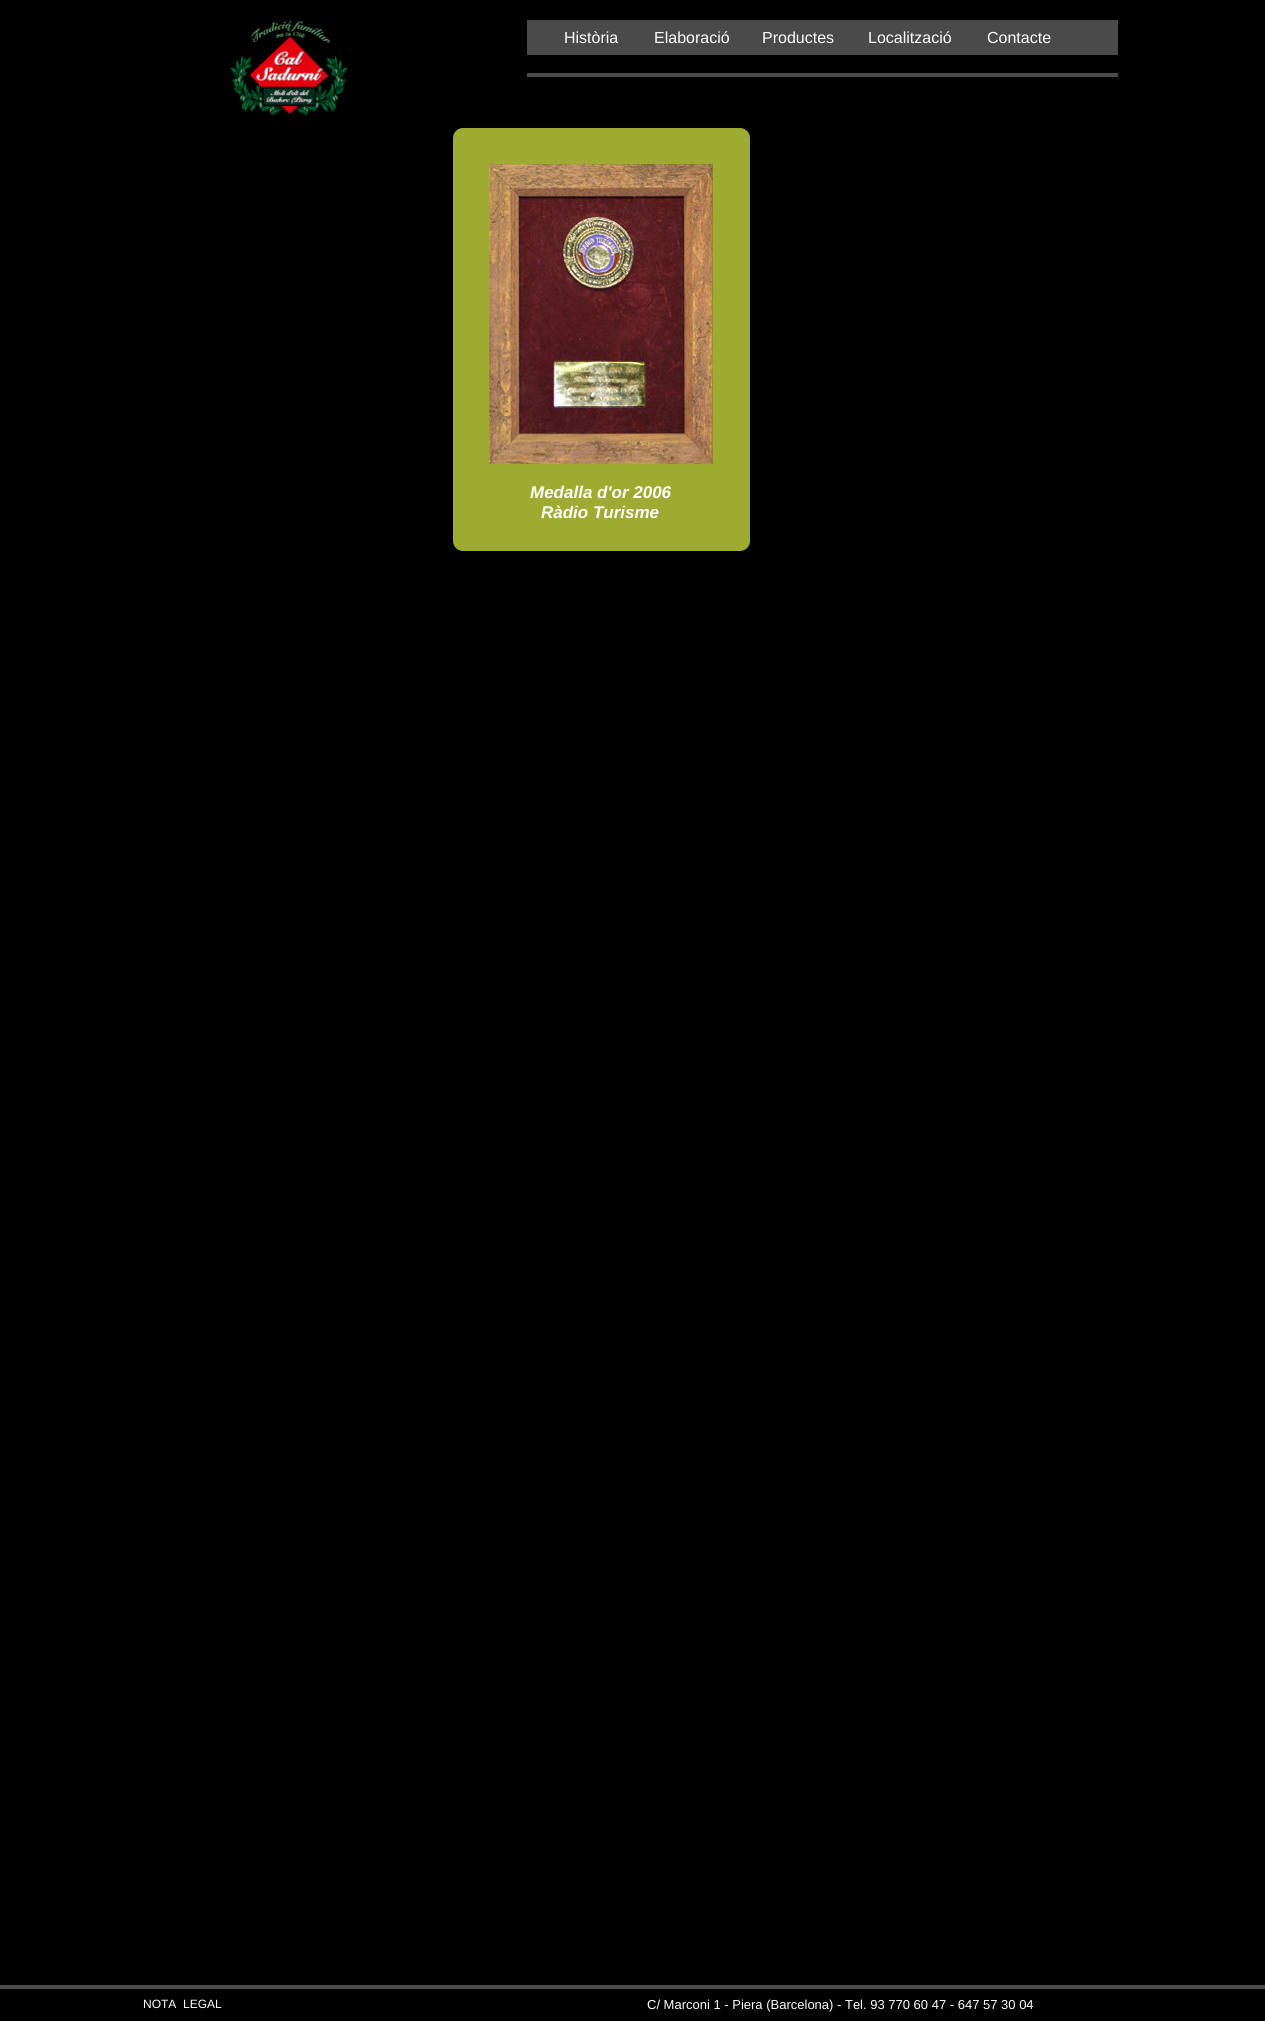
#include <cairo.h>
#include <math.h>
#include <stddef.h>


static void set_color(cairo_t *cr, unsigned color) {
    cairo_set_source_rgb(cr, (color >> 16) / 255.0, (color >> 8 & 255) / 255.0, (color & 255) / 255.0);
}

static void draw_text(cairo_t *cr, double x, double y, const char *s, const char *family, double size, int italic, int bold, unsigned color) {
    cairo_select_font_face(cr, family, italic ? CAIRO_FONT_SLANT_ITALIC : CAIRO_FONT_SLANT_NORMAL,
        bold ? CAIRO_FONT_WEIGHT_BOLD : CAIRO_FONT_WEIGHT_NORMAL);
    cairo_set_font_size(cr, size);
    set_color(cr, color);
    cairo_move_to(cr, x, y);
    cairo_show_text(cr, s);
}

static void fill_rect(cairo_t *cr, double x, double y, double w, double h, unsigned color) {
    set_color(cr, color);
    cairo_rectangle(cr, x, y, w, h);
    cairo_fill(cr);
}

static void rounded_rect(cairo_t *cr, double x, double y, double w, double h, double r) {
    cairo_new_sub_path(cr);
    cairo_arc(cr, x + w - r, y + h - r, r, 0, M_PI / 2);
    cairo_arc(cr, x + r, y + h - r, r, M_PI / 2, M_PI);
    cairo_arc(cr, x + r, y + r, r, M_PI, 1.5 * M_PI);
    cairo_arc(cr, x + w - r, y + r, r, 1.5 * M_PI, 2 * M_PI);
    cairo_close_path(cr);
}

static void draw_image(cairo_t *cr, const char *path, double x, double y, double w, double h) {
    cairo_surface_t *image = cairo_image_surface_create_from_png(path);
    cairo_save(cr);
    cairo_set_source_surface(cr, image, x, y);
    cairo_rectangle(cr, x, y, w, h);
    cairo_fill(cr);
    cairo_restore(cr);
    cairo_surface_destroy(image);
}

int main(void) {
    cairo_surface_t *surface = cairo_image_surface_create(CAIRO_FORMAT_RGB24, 1265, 2021);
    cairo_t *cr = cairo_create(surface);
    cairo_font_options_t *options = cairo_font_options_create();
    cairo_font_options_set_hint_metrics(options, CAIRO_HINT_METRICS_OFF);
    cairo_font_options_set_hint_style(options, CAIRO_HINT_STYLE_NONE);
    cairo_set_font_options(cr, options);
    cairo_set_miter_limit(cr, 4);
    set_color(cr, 0x000000);
    cairo_paint(cr);
    draw_image(cr, "assets/img1.png", 230, 21, 118, 95);
    fill_rect(cr, 527, 20, 591, 35, 0x4A4A4A);
    draw_text(cr, 564, 43, "Història", "Liberation Sans", 16, 0, 0, 0xFFFFFF);
    draw_text(cr, 654, 43, "Elaboració", "Liberation Sans", 16, 0, 0, 0xFFFFFF);
    draw_text(cr, 762, 43, "Productes", "Liberation Sans", 16, 0, 0, 0xFFFFFF);
    draw_text(cr, 868, 43, "Localització", "Liberation Sans", 16, 0, 0, 0xFFFFFF);
    draw_text(cr, 987, 43, "Contacte", "Liberation Sans", 16, 0, 0, 0xFFFFFF);
    fill_rect(cr, 527, 73, 591, 4, 0x4A4A4A);
    set_color(cr, 0x9DAB31);
    rounded_rect(cr, 453, 128, 297, 423, 10);
    cairo_fill(cr);
    draw_image(cr, "assets/img2.png", 489, 164, 224, 300);
    draw_text(cr, 530, 498, "Medalla d'or 2006", "Liberation Sans", 17, 1, 1, 0xFFFFFF);
    draw_text(cr, 541, 518, "Ràdio Turisme", "Liberation Sans", 17, 1, 1, 0xFFFFFF);
    fill_rect(cr, 0, 1985, 1265, 4, 0x4A4A4A);
    draw_text(cr, 143, 2008, "NOTA  LEGAL", "Liberation Sans", 12, 0, 0, 0xFFFFFF);
    draw_text(cr, 647, 2009, "C/ Marconi 1 - Piera (Barcelona) - Tel. 93 770 60 47 - 647 57 30 04", "Liberation Sans", 13, 0, 0, 0xFFFFFF);
    cairo_surface_write_to_png(surface, "output.png");
    cairo_font_options_destroy(options);
    cairo_destroy(cr);
    cairo_surface_destroy(surface);
    return 0;
}
